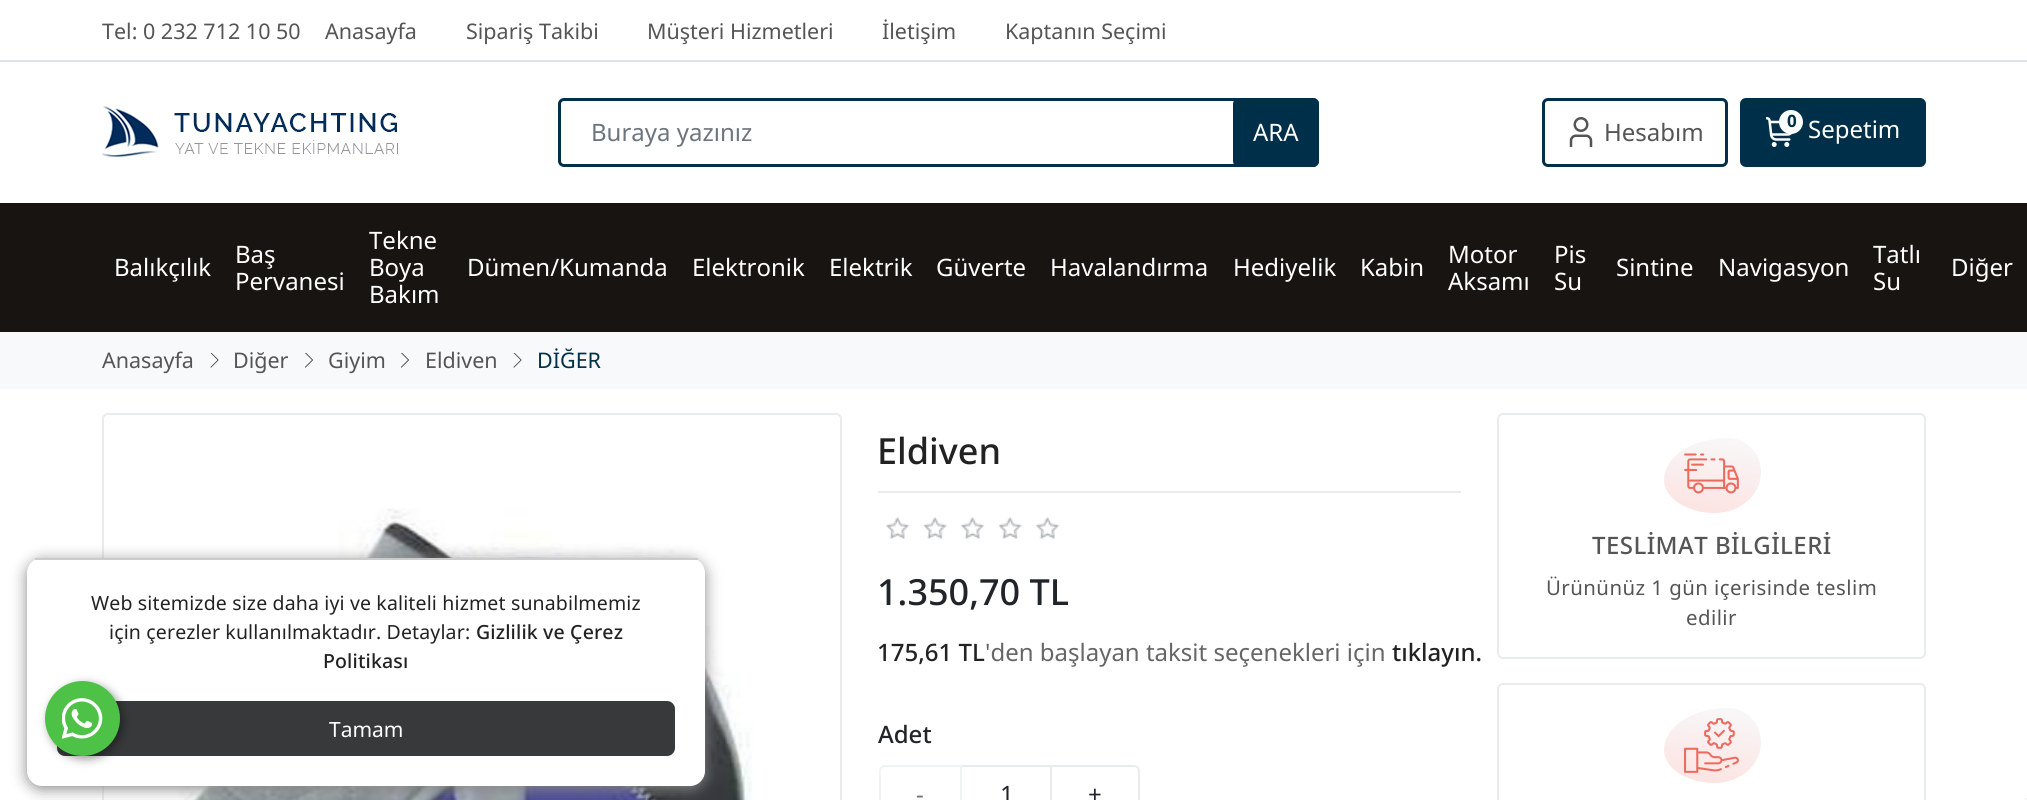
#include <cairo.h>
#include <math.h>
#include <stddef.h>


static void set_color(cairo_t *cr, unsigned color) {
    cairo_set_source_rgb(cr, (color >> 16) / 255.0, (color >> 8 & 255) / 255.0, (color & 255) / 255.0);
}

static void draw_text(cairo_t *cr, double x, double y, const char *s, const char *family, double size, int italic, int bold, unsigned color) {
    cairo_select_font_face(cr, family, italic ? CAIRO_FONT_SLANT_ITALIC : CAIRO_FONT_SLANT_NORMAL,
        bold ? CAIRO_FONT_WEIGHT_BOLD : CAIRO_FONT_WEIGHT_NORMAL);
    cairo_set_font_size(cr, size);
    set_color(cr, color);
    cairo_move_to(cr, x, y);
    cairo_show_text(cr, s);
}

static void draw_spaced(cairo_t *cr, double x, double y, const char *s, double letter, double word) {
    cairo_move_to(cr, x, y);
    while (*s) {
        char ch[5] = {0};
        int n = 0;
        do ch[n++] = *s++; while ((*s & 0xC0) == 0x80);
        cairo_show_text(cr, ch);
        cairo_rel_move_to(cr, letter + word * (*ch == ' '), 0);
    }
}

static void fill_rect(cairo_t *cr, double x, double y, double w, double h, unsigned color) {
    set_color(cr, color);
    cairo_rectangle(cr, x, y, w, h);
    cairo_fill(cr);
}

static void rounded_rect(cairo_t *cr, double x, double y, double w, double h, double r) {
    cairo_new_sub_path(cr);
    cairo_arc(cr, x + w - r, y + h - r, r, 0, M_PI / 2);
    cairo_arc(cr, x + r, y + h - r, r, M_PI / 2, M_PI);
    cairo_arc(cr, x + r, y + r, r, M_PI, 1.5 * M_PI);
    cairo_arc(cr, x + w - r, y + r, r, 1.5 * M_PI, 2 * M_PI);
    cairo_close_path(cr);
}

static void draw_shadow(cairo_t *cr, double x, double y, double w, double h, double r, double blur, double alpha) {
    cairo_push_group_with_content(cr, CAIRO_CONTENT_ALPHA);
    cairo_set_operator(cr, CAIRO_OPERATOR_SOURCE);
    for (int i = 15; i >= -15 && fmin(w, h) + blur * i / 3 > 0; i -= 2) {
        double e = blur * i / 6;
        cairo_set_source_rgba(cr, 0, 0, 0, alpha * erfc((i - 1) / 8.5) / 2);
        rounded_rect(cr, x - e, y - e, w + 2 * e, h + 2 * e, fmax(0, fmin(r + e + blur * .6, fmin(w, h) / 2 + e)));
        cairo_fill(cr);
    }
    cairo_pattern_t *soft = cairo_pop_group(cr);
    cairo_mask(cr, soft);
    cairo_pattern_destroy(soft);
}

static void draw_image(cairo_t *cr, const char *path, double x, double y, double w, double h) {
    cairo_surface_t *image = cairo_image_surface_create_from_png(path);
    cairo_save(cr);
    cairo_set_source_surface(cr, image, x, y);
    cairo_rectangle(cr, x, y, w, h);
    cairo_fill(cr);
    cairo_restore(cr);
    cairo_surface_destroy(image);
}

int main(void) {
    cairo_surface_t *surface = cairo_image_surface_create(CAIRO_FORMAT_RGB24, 2027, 800);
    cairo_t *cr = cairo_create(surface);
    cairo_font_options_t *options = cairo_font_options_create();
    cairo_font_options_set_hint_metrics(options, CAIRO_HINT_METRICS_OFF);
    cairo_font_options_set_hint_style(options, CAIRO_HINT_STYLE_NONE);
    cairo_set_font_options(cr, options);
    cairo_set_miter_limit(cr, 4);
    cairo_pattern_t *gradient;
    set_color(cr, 0xFFFFFF);
    cairo_paint(cr);
    rounded_rect(cr, 103, 414, 738, 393, 5);
    set_color(cr, 0xE9ECEF);
    cairo_stroke(cr);
    draw_image(cr, "assets/img7.png", 179, 508, 574, 292);
    set_color(cr, 0x888888);
    draw_shadow(cr, 27, 561, 678, 228, 15, 7.5, 1);
    set_color(cr, 0xFFFFFF);
    rounded_rect(cr, 27, 558, 678, 228, 15);
    cairo_fill(cr);
    set_color(cr, 0x37393B);
    rounded_rect(cr, 57, 701, 618, 55, 8);
    cairo_fill(cr);
    set_color(cr, 0x000000);
    draw_shadow(cr, 48, 684, 75, 75, 37.5, 4.5, 0.4);
    set_color(cr, 0x4DC247);
    cairo_arc(cr, 82.5, 718.5, 37.5, 0, 2 * M_PI);
    cairo_fill(cr);
    draw_image(cr, "assets/img1.png", 62, 698, 41, 41);
    fill_rect(cr, 0, 60, 2027, 2, 0xDEE2E6);
    draw_text(cr, 102, 39, "Tel: 0 232 712 10 50", "Noto Sans", 21.5, 0, 0, 0x555555);
    draw_text(cr, 325, 39, "Anasayfa", "Noto Sans", 21.5, 0, 0, 0x555555);
    draw_text(cr, 466, 39, "Sipariş Takibi", "Noto Sans", 21.5, 0, 0, 0x555555);
    draw_text(cr, 647, 39, "Müşteri Hizmetleri", "Noto Sans", 21.5, 0, 0, 0x555555);
    draw_text(cr, 882, 39, "İletişim", "Noto Sans", 21.5, 0, 0, 0x555555);
    draw_text(cr, 1005, 39, "Kaptanın Seçimi", "Noto Sans", 21.5, 0, 0, 0x555555);
    draw_image(cr, "assets/img2.png", 102, 106, 296, 52);
    rounded_rect(cr, 559.5, 99.5, 758, 66, 4.5);
    set_color(cr, 0x003049);
    cairo_set_line_width(cr, 3);
    cairo_stroke(cr);
    draw_text(cr, 591, 141, "Buraya yazınız", "Noto Sans", 24, 0, 0, 0x6C757D);
    set_color(cr, 0x003049);
    rounded_rect(cr, 1233, 98, 86, 69, 6);
    cairo_fill(cr);
    draw_text(cr, 1253, 141, "ARA", "Noto Sans", 24, 0, 0, 0xFFFFFF);
    rounded_rect(cr, 1543.5, 99.5, 183, 66, 4.5);
    set_color(cr, 0x003049);
    cairo_stroke(cr);
    draw_image(cr, "assets/img3.png", 1569, 117, 24, 30);
    draw_text(cr, 1604, 141, "Hesabım", "Noto Sans", 24, 0, 0, 0x555555);
    set_color(cr, 0x003049);
    rounded_rect(cr, 1740, 98, 186, 69, 6);
    cairo_fill(cr);
    draw_image(cr, "assets/img4.png", 1766, 117, 27, 30);
    set_color(cr, 0xFFFFFF);
    cairo_arc(cr, 1791, 122, 12, 0, 2 * M_PI);
    cairo_fill(cr);
    draw_text(cr, 1787, 127, "0", "Noto Sans", 17, 0, 1, 0x003049);
    draw_text(cr, 1808, 138, "Sepetim", "Noto Sans", 24, 0, 0, 0xFFFFFF);
    fill_rect(cr, 0, 203, 2027, 129, 0x181411);
    draw_text(cr, 114, 276, "Balıkçılık", "Noto Sans", 24, 0, 0, 0xFFFFFF);
    draw_text(cr, 235, 263, "Baş", "Noto Sans", 24, 0, 0, 0xFFFFFF);
    draw_text(cr, 235, 290, "Pervanesi", "Noto Sans", 24, 0, 0, 0xFFFFFF);
    draw_text(cr, 369, 249, "Tekne", "Noto Sans", 24, 0, 0, 0xFFFFFF);
    draw_text(cr, 369, 276, "Boya", "Noto Sans", 24, 0, 0, 0xFFFFFF);
    draw_text(cr, 369, 303, "Bakım", "Noto Sans", 24, 0, 0, 0xFFFFFF);
    draw_text(cr, 467, 276, "Dümen/Kumanda", "Noto Sans", 24, 0, 0, 0xFFFFFF);
    draw_text(cr, 692, 276, "Elektronik", "Noto Sans", 24, 0, 0, 0xFFFFFF);
    draw_text(cr, 829, 276, "Elektrik", "Noto Sans", 24, 0, 0, 0xFFFFFF);
    draw_text(cr, 936, 276, "Güverte", "Noto Sans", 24, 0, 0, 0xFFFFFF);
    draw_text(cr, 1050, 276, "Havalandırma", "Noto Sans", 24, 0, 0, 0xFFFFFF);
    draw_text(cr, 1233, 276, "Hediyelik", "Noto Sans", 24, 0, 0, 0xFFFFFF);
    draw_text(cr, 1360, 276, "Kabin", "Noto Sans", 24, 0, 0, 0xFFFFFF);
    draw_text(cr, 1448, 263, "Motor", "Noto Sans", 24, 0, 0, 0xFFFFFF);
    draw_text(cr, 1448, 290, "Aksamı", "Noto Sans", 24, 0, 0, 0xFFFFFF);
    draw_text(cr, 1554, 263, "Pis", "Noto Sans", 24, 0, 0, 0xFFFFFF);
    draw_text(cr, 1554, 290, "Su", "Noto Sans", 24, 0, 0, 0xFFFFFF);
    draw_text(cr, 1616, 276, "Sintine", "Noto Sans", 24, 0, 0, 0xFFFFFF);
    draw_text(cr, 1718, 276, "Navigasyon", "Noto Sans", 24, 0, 0, 0xFFFFFF);
    draw_text(cr, 1873, 263, "Tatlı", "Noto Sans", 24, 0, 0, 0xFFFFFF);
    draw_text(cr, 1873, 290, "Su", "Noto Sans", 24, 0, 0, 0xFFFFFF);
    draw_text(cr, 1951, 276, "Diğer", "Noto Sans", 24, 0, 0, 0xFFFFFF);
    fill_rect(cr, 35, 558, 663, 2, 0xCCCCCC);
    cairo_set_font_size(cr, 19.5);
    set_color(cr, 0x222222);
    draw_spaced(cr, 91, 610, "Web sitemizde size daha iyi ve kaliteli hizmet sunabilmemiz", 0.15, 0);
    draw_spaced(cr, 109, 639, "için çerezler kullanılmaktadır. Detaylar:", 0.15, 0);
    cairo_select_font_face(cr, "Noto Sans Medium", CAIRO_FONT_SLANT_NORMAL, CAIRO_FONT_WEIGHT_NORMAL);
    draw_spaced(cr, 476, 639, "Gizlilik ve Çerez", 0.15, 0);
    draw_spaced(cr, 323, 668, "Politikası", 0.15, 0);
    draw_text(cr, 329, 737, "Tamam", "Noto Sans", 21, 0, 0, 0xFFFFFF);
    fill_rect(cr, 0, 332, 2027, 57, 0xF8F9FA);
    draw_text(cr, 102, 368, "Anasayfa", "Noto Sans", 21.5, 0, 0, 0x555555);
    draw_image(cr, "assets/img5.png", 210, 353, 9, 15);
    draw_text(cr, 233, 368, "Diğer", "Noto Sans", 21.5, 0, 0, 0x555555);
    draw_image(cr, "assets/img6.png", 305, 353, 8, 15);
    draw_text(cr, 328, 368, "Giyim", "Noto Sans", 21.5, 0, 0, 0x555555);
    draw_image(cr, "assets/img6.png", 401, 353, 8, 15);
    draw_text(cr, 425, 368, "Eldiven", "Noto Sans", 21.5, 0, 0, 0x555555);
    draw_image(cr, "assets/img5.png", 513, 353, 9, 15);
    draw_text(cr, 537, 368, "DİĞER", "Noto Sans", 21.5, 0, 0, 0x003049);
    fill_rect(cr, 878, 491, 583, 2, 0xE9ECEF);
    draw_text(cr, 877, 464, "Eldiven", "Noto Sans Medium", 36, 0, 0, 0x222222);
    draw_image(cr, "assets/img8.png", 886, 517, 174, 22);
    draw_text(cr, 877, 605, "1.350,70 TL", "Noto Sans Medium", 36, 0, 0, 0x212529);
    draw_text(cr, 877, 661, "175,61 TL", "Noto Sans Medium", 24, 0, 0, 0x222222);
    draw_text(cr, 985, 661, "'den başlayan taksit seçenekleri için", "Noto Sans", 24, 0, 0, 0x666666);
    draw_text(cr, 1392, 661, "tıklayın.", "Noto Sans Medium", 24, 0, 0, 0x222222);
    draw_text(cr, 878, 743, "Adet", "Noto Sans Medium", 24, 0, 0, 0x212529);
    cairo_new_path(cr);
    cairo_move_to(cr, 885, 766);
    cairo_line_to(cr, 961, 766);
    cairo_line_to(cr, 961, 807);
    cairo_line_to(cr, 885, 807);
    cairo_curve_to(cr, 882, 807, 880, 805, 880, 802);
    cairo_line_to(cr, 880, 771);
    cairo_curve_to(cr, 880, 768, 882, 766, 885, 766);
    cairo_close_path(cr);
    set_color(cr, 0xF1F3F5);
    cairo_set_line_width(cr, 2);
    cairo_stroke(cr);
    draw_text(cr, 916, 803, "-", "Noto Sans", 24, 0, 0, 0x6F7174);
    fill_rect(cr, 962, 765, 90, 2, 0xE9ECEF);
    draw_text(cr, 1000, 803, "1", "Noto Sans", 24, 0, 0, 0x212529);
    cairo_new_path(cr);
    cairo_move_to(cr, 1051, 766);
    cairo_line_to(cr, 1134, 766);
    cairo_curve_to(cr, 1137, 766, 1139, 768, 1139, 771);
    cairo_line_to(cr, 1139, 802);
    cairo_curve_to(cr, 1139, 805, 1137, 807, 1134, 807);
    cairo_line_to(cr, 1051, 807);
    cairo_close_path(cr);
    set_color(cr, 0xE9ECEF);
    cairo_stroke(cr);
    draw_text(cr, 1088, 803, "+", "Noto Sans", 24, 0, 0, 0x212529);
    rounded_rect(cr, 1498, 414, 427, 244, 5);
    set_color(cr, 0xE9ECEF);
    cairo_stroke(cr);
    gradient = cairo_pattern_create_linear(1719, 431, 1705, 520);
    cairo_pattern_add_color_stop_rgba(gradient, 0, 0.749, 0.584, 0.247, 1);
    cairo_pattern_add_color_stop_rgba(gradient, 0, 0.302, 0.588, 0.408, 1);
    cairo_pattern_add_color_stop_rgba(gradient, 0, 0.973, 0.976, 0.98, 1);
    cairo_pattern_add_color_stop_rgba(gradient, 1, 0.988, 0.886, 0.878, 1);
    cairo_pattern_add_color_stop_rgba(gradient, 1, 0.302, 0.588, 0.408, 1);
    cairo_pattern_add_color_stop_rgba(gradient, 1, 0.933, 0.416, 0.373, 1);
    cairo_set_source(cr, gradient);
    cairo_pattern_destroy(gradient);
    cairo_new_path(cr);
    cairo_move_to(cr, 1728, 438);
    cairo_curve_to(cr, 1746, 438, 1761, 453, 1761, 472);
    cairo_curve_to(cr, 1761, 495, 1740, 513, 1715, 513);
    cairo_curve_to(cr, 1687, 513, 1664, 498, 1664, 480);
    cairo_curve_to(cr, 1664, 457, 1692, 438, 1728, 438);
    cairo_close_path(cr);
    cairo_fill(cr);
    draw_image(cr, "assets/img9.png", 1684, 453, 55, 41);
    cairo_select_font_face(cr, "Noto Sans Medium", CAIRO_FONT_SLANT_NORMAL, CAIRO_FONT_WEIGHT_NORMAL);
    set_color(cr, 0x555555);
    draw_spaced(cr, 1592, 554, "TESLİMAT BİLGİLERİ", 0.45, 0);
    cairo_select_font_face(cr, "Noto Sans", CAIRO_FONT_SLANT_NORMAL, CAIRO_FONT_WEIGHT_NORMAL);
    cairo_set_font_size(cr, 20.4);
    draw_spaced(cr, 1546, 595, "Ürününüz 1 gün içerisinde teslim", 0.45, 0);
    draw_spaced(cr, 1686, 625, "edilir", 0.45, 0);
    rounded_rect(cr, 1498, 684, 427, 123, 5);
    set_color(cr, 0xE9ECEF);
    cairo_stroke(cr);
    gradient = cairo_pattern_create_linear(1719, 701, 1705, 790);
    cairo_pattern_add_color_stop_rgba(gradient, 0, 0.749, 0.584, 0.247, 1);
    cairo_pattern_add_color_stop_rgba(gradient, 0, 0.302, 0.588, 0.408, 1);
    cairo_pattern_add_color_stop_rgba(gradient, 0, 0.973, 0.976, 0.98, 1);
    cairo_pattern_add_color_stop_rgba(gradient, 1, 0.988, 0.886, 0.878, 1);
    cairo_pattern_add_color_stop_rgba(gradient, 1, 0.302, 0.588, 0.408, 1);
    cairo_pattern_add_color_stop_rgba(gradient, 1, 0.933, 0.416, 0.373, 1);
    cairo_set_source(cr, gradient);
    cairo_pattern_destroy(gradient);
    cairo_new_path(cr);
    cairo_move_to(cr, 1728, 708);
    cairo_curve_to(cr, 1746, 708, 1761, 723, 1761, 742);
    cairo_curve_to(cr, 1761, 765, 1740, 783, 1715, 783);
    cairo_curve_to(cr, 1687, 783, 1664, 768, 1664, 750);
    cairo_curve_to(cr, 1664, 727, 1692, 708, 1728, 708);
    cairo_close_path(cr);
    cairo_fill(cr);
    draw_image(cr, "assets/img10.png", 1684, 718, 55, 55);
    fill_rect(cr, 2025, 798, 2, 2, 0xF5F5F5);
    cairo_surface_write_to_png(surface, "output.png");
    cairo_font_options_destroy(options);
    cairo_destroy(cr);
    cairo_surface_destroy(surface);
    return 0;
}
